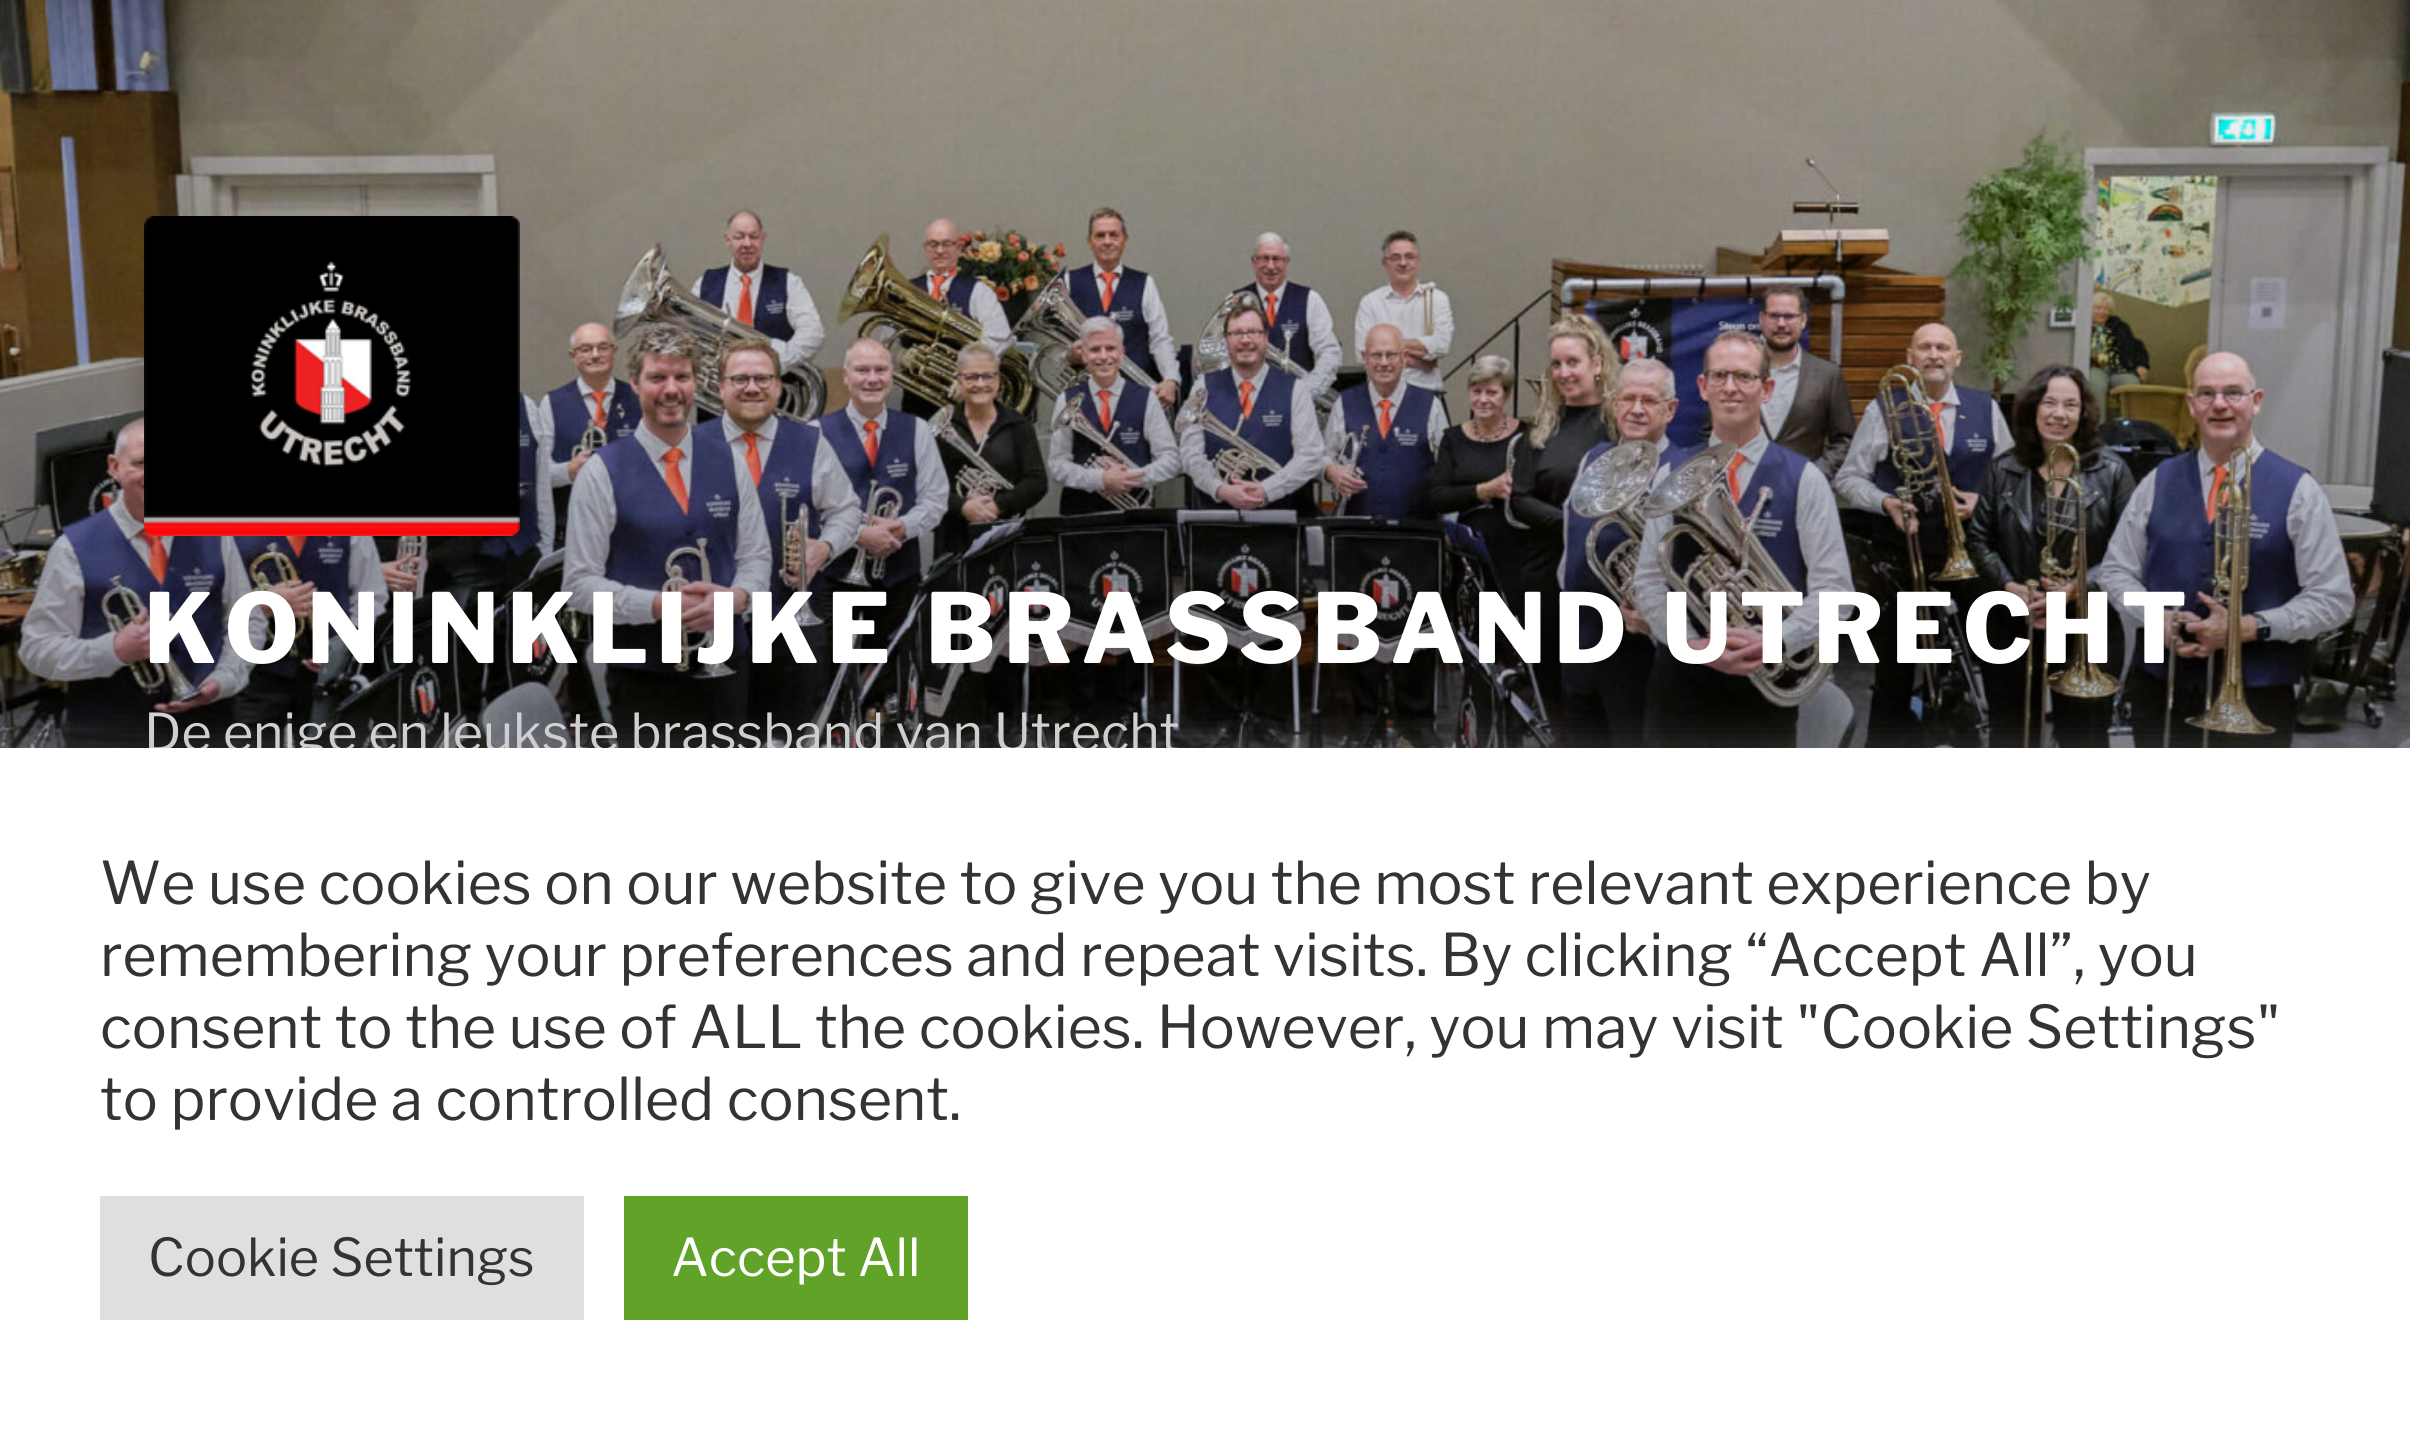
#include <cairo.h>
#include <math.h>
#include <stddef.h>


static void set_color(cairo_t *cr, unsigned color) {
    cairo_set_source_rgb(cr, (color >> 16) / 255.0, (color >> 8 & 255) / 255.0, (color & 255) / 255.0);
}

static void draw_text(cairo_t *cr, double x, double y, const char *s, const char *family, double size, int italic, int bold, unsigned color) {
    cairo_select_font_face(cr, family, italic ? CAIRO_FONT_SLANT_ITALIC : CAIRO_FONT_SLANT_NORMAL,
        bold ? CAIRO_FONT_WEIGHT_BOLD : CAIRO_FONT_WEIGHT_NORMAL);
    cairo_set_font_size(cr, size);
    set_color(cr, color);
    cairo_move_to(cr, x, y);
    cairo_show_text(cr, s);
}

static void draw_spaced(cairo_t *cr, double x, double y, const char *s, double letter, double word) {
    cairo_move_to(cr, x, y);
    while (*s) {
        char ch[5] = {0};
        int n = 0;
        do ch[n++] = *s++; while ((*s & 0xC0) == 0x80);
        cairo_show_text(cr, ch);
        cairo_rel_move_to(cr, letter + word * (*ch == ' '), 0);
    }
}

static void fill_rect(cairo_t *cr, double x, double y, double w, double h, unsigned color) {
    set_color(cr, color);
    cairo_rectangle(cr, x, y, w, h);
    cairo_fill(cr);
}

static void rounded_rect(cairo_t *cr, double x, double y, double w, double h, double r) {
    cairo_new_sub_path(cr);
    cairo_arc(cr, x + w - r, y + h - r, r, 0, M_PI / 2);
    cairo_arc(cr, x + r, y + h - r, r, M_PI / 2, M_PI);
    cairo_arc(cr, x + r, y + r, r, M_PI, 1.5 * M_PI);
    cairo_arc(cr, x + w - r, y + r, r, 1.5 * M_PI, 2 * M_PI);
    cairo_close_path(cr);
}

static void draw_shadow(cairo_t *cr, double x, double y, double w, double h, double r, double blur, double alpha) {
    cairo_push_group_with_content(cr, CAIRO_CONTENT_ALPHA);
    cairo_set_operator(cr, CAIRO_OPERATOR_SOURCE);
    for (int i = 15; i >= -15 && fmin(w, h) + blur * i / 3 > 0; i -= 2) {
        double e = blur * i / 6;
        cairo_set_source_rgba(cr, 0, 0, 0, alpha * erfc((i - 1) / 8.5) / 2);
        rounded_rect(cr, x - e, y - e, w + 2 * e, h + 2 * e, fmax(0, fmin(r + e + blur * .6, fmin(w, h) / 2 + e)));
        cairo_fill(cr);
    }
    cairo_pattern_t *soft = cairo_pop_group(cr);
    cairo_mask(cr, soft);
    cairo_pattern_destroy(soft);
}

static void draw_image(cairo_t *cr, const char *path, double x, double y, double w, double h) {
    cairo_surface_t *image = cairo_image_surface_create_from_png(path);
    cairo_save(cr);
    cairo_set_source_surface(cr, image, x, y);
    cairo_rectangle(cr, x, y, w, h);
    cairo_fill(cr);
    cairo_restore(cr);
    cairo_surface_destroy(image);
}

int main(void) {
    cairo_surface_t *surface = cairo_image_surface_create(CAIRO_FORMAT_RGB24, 2410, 1438);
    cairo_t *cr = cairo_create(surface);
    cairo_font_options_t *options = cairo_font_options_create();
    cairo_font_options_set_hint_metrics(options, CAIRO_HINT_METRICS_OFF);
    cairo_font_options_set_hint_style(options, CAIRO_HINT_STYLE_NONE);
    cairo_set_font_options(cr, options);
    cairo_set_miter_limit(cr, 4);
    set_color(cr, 0xFFFFFF);
    cairo_paint(cr);
    draw_image(cr, "assets/img1.png", 0, 0, 2410, 748);
    draw_image(cr, "assets/img2.png", 144, 216, 376, 320);
    cairo_select_font_face(cr, "Libre Franklin Thin", CAIRO_FONT_SLANT_NORMAL, CAIRO_FONT_WEIGHT_NORMAL);
    cairo_set_font_size(cr, 96);
    set_color(cr, 0xFFFFFF);
    draw_spaced(cr, 144, 663, "KONINKLIJKE BRASSBAND UTRECHT", 7.7, 0);
    draw_text(cr, 144, 751, "De enige en leukste brassband van Utrecht", "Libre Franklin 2 Thin", 52, 0, 0, 0xD2D2D2);
    set_color(cr, 0xACABAB);
    draw_shadow(cr, 0, 744, 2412, 692, 0, 20, 0.3);
    fill_rect(cr, 0, 748, 2410, 690, 0xFFFFFF);
    draw_text(cr, 100, 904, "We use cookies on our website to give you the most relevant experience by", "Libre Franklin 2 Thin", 58.65, 0, 0, 0x333333);
    draw_spaced(cr, 100, 976, "remembering your preferences and repeat visits. By clicking “Accept All”, you", 0, -0.25);
    draw_text(cr, 100, 1048, "consent to the use of ALL the cookies. However, you may visit \"Cookie Settings\"", "Libre Franklin 2 Thin", 58.65, 0, 0, 0x333333);
    draw_text(cr, 100, 1120, "to provide a controlled consent.", "Libre Franklin 2 Thin", 58.65, 0, 0, 0x333333);
    fill_rect(cr, 100, 1196, 484, 124, 0xDEDFE0);
    draw_text(cr, 148, 1276, "Cookie Settings", "Libre Franklin 2 Thin", 52, 0, 0, 0x333333);
    fill_rect(cr, 624, 1196, 344, 124, 0x61A229);
    draw_text(cr, 671, 1276, "Accept All", "Libre Franklin 2 Thin", 52, 0, 0, 0xFFFFFF);
    cairo_surface_write_to_png(surface, "output.png");
    cairo_font_options_destroy(options);
    cairo_destroy(cr);
    cairo_surface_destroy(surface);
    return 0;
}
